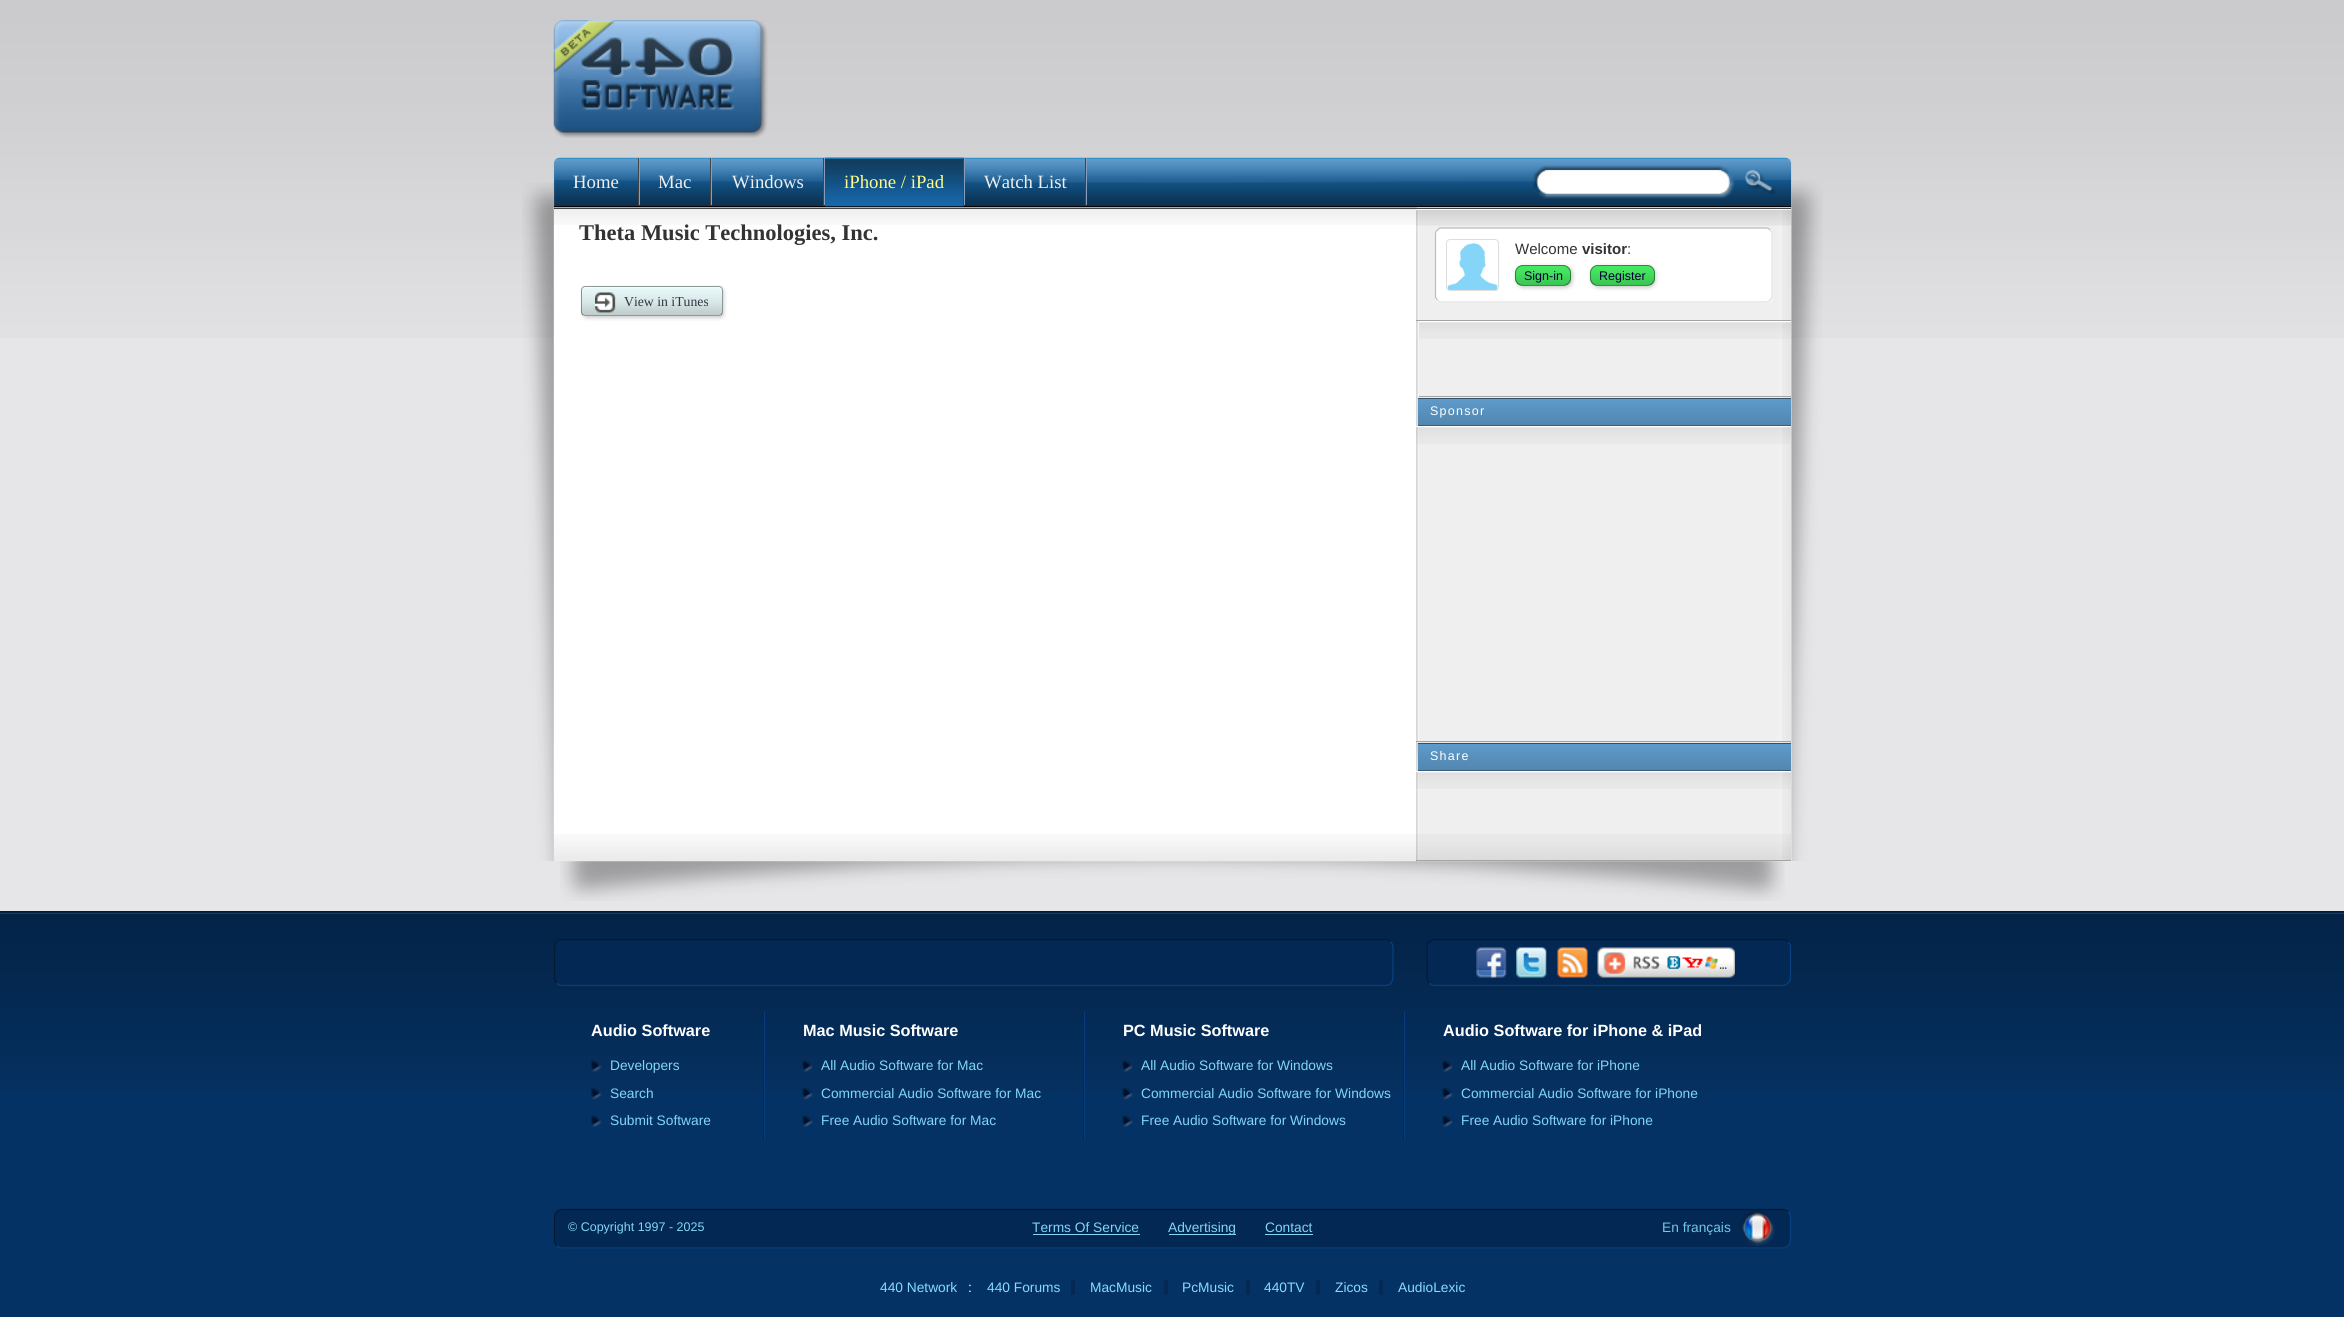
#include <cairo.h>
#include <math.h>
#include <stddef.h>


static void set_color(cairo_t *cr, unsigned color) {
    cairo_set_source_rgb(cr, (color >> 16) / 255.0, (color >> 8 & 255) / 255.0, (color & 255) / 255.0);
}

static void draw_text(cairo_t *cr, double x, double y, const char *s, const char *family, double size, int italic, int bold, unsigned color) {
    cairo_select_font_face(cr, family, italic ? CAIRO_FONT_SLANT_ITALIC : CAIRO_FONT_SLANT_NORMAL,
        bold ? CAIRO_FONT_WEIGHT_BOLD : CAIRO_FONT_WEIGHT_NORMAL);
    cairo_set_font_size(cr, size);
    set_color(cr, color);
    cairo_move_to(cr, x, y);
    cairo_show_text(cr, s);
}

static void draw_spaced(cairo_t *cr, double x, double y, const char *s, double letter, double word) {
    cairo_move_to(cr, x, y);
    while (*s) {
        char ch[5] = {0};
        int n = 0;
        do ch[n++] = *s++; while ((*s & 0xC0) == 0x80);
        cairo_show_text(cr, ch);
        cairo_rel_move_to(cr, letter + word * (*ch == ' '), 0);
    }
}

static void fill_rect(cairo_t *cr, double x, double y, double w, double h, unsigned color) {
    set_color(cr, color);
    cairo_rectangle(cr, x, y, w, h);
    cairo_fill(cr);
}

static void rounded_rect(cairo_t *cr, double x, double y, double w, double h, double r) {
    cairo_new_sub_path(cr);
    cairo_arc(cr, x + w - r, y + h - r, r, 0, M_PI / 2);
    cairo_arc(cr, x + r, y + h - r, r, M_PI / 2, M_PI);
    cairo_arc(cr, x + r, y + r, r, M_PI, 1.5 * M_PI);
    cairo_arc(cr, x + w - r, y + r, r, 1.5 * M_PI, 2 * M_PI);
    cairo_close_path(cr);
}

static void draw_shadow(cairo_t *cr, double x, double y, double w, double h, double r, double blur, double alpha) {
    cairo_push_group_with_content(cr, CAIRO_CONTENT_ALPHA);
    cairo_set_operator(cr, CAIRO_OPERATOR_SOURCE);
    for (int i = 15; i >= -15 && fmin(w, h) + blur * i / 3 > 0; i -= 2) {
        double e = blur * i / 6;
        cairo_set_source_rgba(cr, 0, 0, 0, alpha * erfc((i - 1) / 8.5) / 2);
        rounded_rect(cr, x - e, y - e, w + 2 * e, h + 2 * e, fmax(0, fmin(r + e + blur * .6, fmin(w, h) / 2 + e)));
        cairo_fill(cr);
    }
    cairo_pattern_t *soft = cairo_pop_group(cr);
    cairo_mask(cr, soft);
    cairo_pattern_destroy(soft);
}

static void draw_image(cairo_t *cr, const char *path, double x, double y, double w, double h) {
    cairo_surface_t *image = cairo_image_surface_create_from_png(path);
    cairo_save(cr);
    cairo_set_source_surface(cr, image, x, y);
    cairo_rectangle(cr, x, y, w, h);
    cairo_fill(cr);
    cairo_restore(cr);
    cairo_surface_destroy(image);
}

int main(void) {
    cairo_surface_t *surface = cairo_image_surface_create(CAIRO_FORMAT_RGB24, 2344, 1317);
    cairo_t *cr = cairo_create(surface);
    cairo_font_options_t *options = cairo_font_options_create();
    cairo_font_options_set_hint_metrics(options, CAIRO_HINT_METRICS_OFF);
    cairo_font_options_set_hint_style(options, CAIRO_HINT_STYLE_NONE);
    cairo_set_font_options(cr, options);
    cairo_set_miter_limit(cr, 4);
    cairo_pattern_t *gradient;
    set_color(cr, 0x053264);
    cairo_paint(cr);
    fill_rect(cr, 0, 0, 2344, 911, 0xE6E6E9);
    draw_image(cr, "assets/img1.png", 0, 0, 2344, 338);
    draw_image(cr, "assets/img2.png", 553, 20, 215, 118);
    draw_image(cr, "assets/img3.png", 522, 182, 32, 679);
    draw_image(cr, "assets/img4.png", 1791, 180, 32, 681);
    draw_image(cr, "assets/img5.png", 553, 157, 1239, 51);
    fill_rect(cr, 554, 206, 1237, 1, 0x000000);
    fill_rect(cr, 638, 158, 1, 48, 0x444444);
    draw_text(cr, 573, 188, "Home", "Liberation Serif", 18.75, 0, 0, 0xEEEEEE);
    fill_rect(cr, 639, 158, 1, 47, 0x8A9DB8);
    fill_rect(cr, 710, 158, 1, 48, 0x444444);
    draw_text(cr, 658, 188, "Mac", "Liberation Serif", 18.75, 0, 0, 0xEEEEEE);
    fill_rect(cr, 711, 158, 1, 47, 0x8A9DB8);
    fill_rect(cr, 823, 158, 1, 48, 0x444444);
    draw_text(cr, 732, 188, "Windows", "Liberation Serif", 18.75, 0, 0, 0xEEEEEE);
    fill_rect(cr, 824, 158, 1, 47, 0x8A9DB8);
    draw_image(cr, "assets/img6.png", 825, 157, 139, 50);
    fill_rect(cr, 963, 158, 1, 48, 0x444444);
    draw_text(cr, 844, 188, "iPhone / iPad", "Liberation Serif", 18.75, 0, 0, 0xFFFB8A);
    fill_rect(cr, 964, 158, 1, 47, 0x8A9DB8);
    fill_rect(cr, 1085, 158, 1, 48, 0x444444);
    draw_text(cr, 984, 188, "Watch List", "Liberation Serif", 18.75, 0, 0, 0xEEEEEE);
    fill_rect(cr, 1086, 158, 1, 47, 0x8A9DB8);
    cairo_set_source_rgba(cr, 1, 1, 1, 0.5);
    cairo_rectangle(cr, 1545, 170, 176, 23);
    cairo_fill(cr);
    fill_rect(cr, 554, 209, 863, 652, 0xFFFFFF);
    draw_image(cr, "assets/img7.png", 1416, 207, 376, 655);
    fill_rect(cr, 554, 208, 1237, 1, 0x444444);
    draw_image(cr, "assets/img8.png", 554, 209, 1237, 16);
    draw_image(cr, "assets/img9.png", 1782, 210, 9, 650);
    draw_image(cr, "assets/img10.png", 554, 834, 1237, 27);
    draw_text(cr, 579, 240, "Theta Music Technologies, Inc.", "Liberation Serif", 22.5, 0, 1, 0x333333);
    set_color(cr, 0x000000);
    draw_shadow(cr, 583, 288, 141, 30, 4, 2, 0.2);
    set_color(cr, 0xEEFFFF);
    rounded_rect(cr, 581, 286, 142, 30, 4);
    cairo_fill(cr);
    draw_image(cr, "assets/img11.png", 581, 288, 142, 27);
    rounded_rect(cr, 581.5, 286.5, 141, 29, 3.5);
    cairo_set_source_rgba(cr, 0, 0, 0, 0.4);
    cairo_set_line_width(cr, 1);
    cairo_stroke(cr);
    draw_image(cr, "assets/img12.png", 595, 292, 21, 21);
    draw_text(cr, 624, 306, "View in iTunes", "Liberation Serif", 13.75, 0, 0, 0x333344);
    draw_image(cr, "assets/img13.png", 1416, 210, 375, 16);
    fill_rect(cr, 1416, 209, 375, 1, 0xFFFFFF);
    fill_rect(cr, 1416, 320, 375, 1, 0xA3A3A3);
    set_color(cr, 0xFFFFFF);
    rounded_rect(cr, 1435, 228, 338, 75, 6);
    cairo_fill(cr);
    cairo_new_path(cr);
    cairo_move_to(cr, 1770, 230);
    cairo_curve_to(cr, 1771.5, 231, 1772, 232.5, 1772, 234);
    cairo_line_to(cr, 1772, 296);
    cairo_curve_to(cr, 1772, 297.5, 1771.5, 299, 1770, 300);
    cairo_curve_to(cr, 1769, 301.5, 1767.5, 302, 1766, 302);
    cairo_line_to(cr, 1441, 302);
    cairo_curve_to(cr, 1440, 302, 1438.5, 301.5, 1437.5, 300);
    set_color(cr, 0xDDDDDD);
    cairo_set_line_width(cr, 1.2);
    cairo_stroke(cr);
    cairo_new_path(cr);
    cairo_move_to(cr, 1437.5, 300);
    cairo_curve_to(cr, 1436, 299, 1435.5, 297.5, 1435.5, 296);
    cairo_line_to(cr, 1435.5, 234);
    cairo_curve_to(cr, 1435.5, 232.5, 1436, 231, 1437.5, 230);
    cairo_curve_to(cr, 1438.5, 228.5, 1440, 228, 1441, 228);
    cairo_line_to(cr, 1766, 228);
    cairo_curve_to(cr, 1767.5, 228, 1769, 228.5, 1770, 230);
    set_color(cr, 0xBBBBBB);
    cairo_stroke(cr);
    rounded_rect(cr, 1446.5, 239.5, 52, 51, 3.5);
    set_color(cr, 0xDDDDDD);
    cairo_set_line_width(cr, 1);
    cairo_stroke(cr);
    draw_image(cr, "assets/img14.png", 1447, 243, 51, 47);
    draw_text(cr, 1515, 254, "Welcome", "Liberation Sans", 15, 0, 0, 0x333333);
    draw_text(cr, 1582, 254, "visitor", "Liberation Sans", 15, 0, 1, 0x333333);
    draw_text(cr, 1627, 254, ":", "Liberation Sans", 15, 0, 0, 0x333333);
    set_color(cr, 0x000000);
    draw_shadow(cr, 1516, 266, 57, 22, 8, 2, 0.2);
    set_color(cr, 0x4BF869);
    rounded_rect(cr, 1515, 265, 56, 21, 8);
    cairo_fill(cr);
    draw_image(cr, "assets/img15.png", 1515, 265, 56, 20);
    rounded_rect(cr, 1515.5, 265.5, 55, 20, 7.5);
    cairo_set_source_rgba(cr, 0, 0, 0, 0.4);
    cairo_stroke(cr);
    draw_text(cr, 1524, 280, "Sign-in", "Liberation Sans", 12.5, 0, 0, 0x000033);
    set_color(cr, 0x000000);
    draw_shadow(cr, 1591, 266, 65, 22, 8, 2, 0.2);
    set_color(cr, 0x4BF869);
    rounded_rect(cr, 1590, 265, 65, 21, 8);
    cairo_fill(cr);
    draw_image(cr, "assets/img16.png", 1590, 265, 65, 20);
    rounded_rect(cr, 1590.5, 265.5, 64, 20, 7.5);
    cairo_set_source_rgba(cr, 0, 0, 0, 0.4);
    cairo_stroke(cr);
    draw_text(cr, 1599, 280, "Register", "Liberation Sans", 12.5, 0, 0, 0x000033);
    draw_image(cr, "assets/img17.png", 1419, 322, 372, 17);
    fill_rect(cr, 1419, 321, 372, 1, 0xFFFFFF);
    fill_rect(cr, 1419, 396, 372, 1, 0xA3A3A3);
    fill_rect(cr, 1416, 741, 375, 1, 0xA3A3A3);
    gradient = cairo_pattern_create_linear(1604, 399, 1604, 425);
    cairo_pattern_add_color_stop_rgba(gradient, 0, 0.369, 0.604, 0.796, 1);
    cairo_pattern_add_color_stop_rgba(gradient, 1, 0.322, 0.529, 0.686, 1);
    cairo_set_source(cr, gradient);
    cairo_pattern_destroy(gradient);
    cairo_rectangle(cr, 1418, 399, 373, 26);
    cairo_fill(cr);
    fill_rect(cr, 1418, 398, 373, 1, 0x31516A);
    fill_rect(cr, 1418, 425, 373, 1, 0x385C79);
    set_color(cr, 0xFFFFFF);
    draw_spaced(cr, 1430, 415, "Sponsor", 1.25, 0);
    draw_image(cr, "assets/img18.png", 1416, 427, 375, 17);
    fill_rect(cr, 1416, 426, 375, 1, 0xFFFFFF);
    draw_image(cr, "assets/img18.png", 1416, 742, 375, 17);
    gradient = cairo_pattern_create_linear(1604, 744, 1604, 770);
    cairo_pattern_add_color_stop_rgba(gradient, 0, 0.369, 0.604, 0.796, 1);
    cairo_pattern_add_color_stop_rgba(gradient, 1, 0.322, 0.529, 0.686, 1);
    cairo_set_source(cr, gradient);
    cairo_pattern_destroy(gradient);
    cairo_rectangle(cr, 1418, 744, 373, 26);
    cairo_fill(cr);
    fill_rect(cr, 1418, 743, 373, 1, 0x31516A);
    fill_rect(cr, 1418, 770, 373, 1, 0x385C79);
    set_color(cr, 0xFFFFFF);
    draw_spaced(cr, 1430, 760, "Share", 1.25, 0);
    draw_image(cr, "assets/img18.png", 1416, 772, 375, 17);
    fill_rect(cr, 1416, 771, 375, 1, 0xFFFFFF);
    fill_rect(cr, 1416, 860, 375, 1, 0xA3A3A3);
    draw_image(cr, "assets/img19.png", 560, 861, 1225, 40);
    draw_image(cr, "assets/img20.png", 0, 912, 2344, 180);
    fill_rect(cr, 0, 911, 2344, 1, 0x011935);
    fill_rect(cr, 0, 914, 2344, 4, 0x032244);
    fill_rect(cr, 0, 913, 2344, 1, 0x074181);
    set_color(cr, 0x032854);
    rounded_rect(cr, 554, 939, 840, 47, 9);
    cairo_fill(cr);
    cairo_save(cr);
    cairo_rectangle(cr, 554, 939, 1237, 47);
    cairo_clip(cr);
    cairo_new_path(cr);
    cairo_move_to(cr, 1390.5, 942);
    cairo_curve_to(cr, 1393.5, 944.5, 1393, 948.5, 1393, 952.5);
    cairo_line_to(cr, 1393, 972.5);
    cairo_curve_to(cr, 1393, 978.5, 1393, 985.5, 1385, 985.5);
    cairo_line_to(cr, 561.5, 985.5);
    cairo_curve_to(cr, 560, 985.5, 558, 984.5, 557, 983);
    set_color(cr, 0x074181);
    cairo_set_line_width(cr, 1.2);
    cairo_stroke(cr);
    cairo_new_path(cr);
    cairo_move_to(cr, 557, 983);
    cairo_curve_to(cr, 554, 980.5, 554.5, 976.5, 554.5, 972.5);
    cairo_line_to(cr, 554.5, 952.5);
    cairo_curve_to(cr, 554.5, 946.5, 554.5, 939.5, 562.5, 939.5);
    cairo_line_to(cr, 1386, 939.5);
    cairo_curve_to(cr, 1387.5, 939.5, 1389.5, 940.5, 1390.5, 942);
    set_color(cr, 0x011935);
    cairo_stroke(cr);
    cairo_restore(cr);
    rounded_rect(cr, 1426, 939, 365, 47, 9);
    cairo_fill(cr);
    cairo_save(cr);
    cairo_rectangle(cr, 554, 939, 1237, 47);
    cairo_clip(cr);
    cairo_new_path(cr);
    cairo_move_to(cr, 1788, 942);
    cairo_curve_to(cr, 1790, 943.5, 1790.5, 945.5, 1790.5, 947.5);
    cairo_line_to(cr, 1790.5, 977.5);
    cairo_curve_to(cr, 1790.5, 979.5, 1790, 981.5, 1788, 983);
    cairo_curve_to(cr, 1786.5, 985, 1784.5, 985.5, 1782.5, 985.5);
    cairo_line_to(cr, 1435, 985.5);
    cairo_curve_to(cr, 1433, 985.5, 1431, 985, 1429.5, 983);
    set_color(cr, 0x074181);
    cairo_set_line_width(cr, 1.2);
    cairo_stroke(cr);
    cairo_new_path(cr);
    cairo_move_to(cr, 1429.5, 983);
    cairo_curve_to(cr, 1427.5, 981.5, 1427, 979.5, 1427, 977.5);
    cairo_line_to(cr, 1427, 947.5);
    cairo_curve_to(cr, 1427, 945.5, 1427.5, 943.5, 1429.5, 942);
    cairo_curve_to(cr, 1431, 940, 1433, 939.5, 1435, 939.5);
    cairo_line_to(cr, 1782.5, 939.5);
    cairo_curve_to(cr, 1784.5, 939.5, 1786.5, 940, 1788, 942);
    set_color(cr, 0x011935);
    cairo_stroke(cr);
    cairo_restore(cr);
    draw_image(cr, "assets/img21.png", 1476, 947, 31, 31);
    draw_image(cr, "assets/img22.png", 1516, 947, 31, 31);
    draw_image(cr, "assets/img23.png", 1557, 947, 31, 31);
    draw_image(cr, "assets/img24.png", 1597, 947, 138, 31);
    fill_rect(cr, 763, 1024, 1, 116, 0x042954);
    draw_text(cr, 591, 1036, "Audio Software", "Liberation Sans", 16.25, 0, 1, 0xFFFFFF);
    draw_image(cr, "assets/img25.png", 591, 1060, 11, 12);
    draw_text(cr, 610, 1070, "Developers", "Liberation Sans", 13.75, 0, 0, 0x81D6F7);
    draw_image(cr, "assets/img26.png", 591, 1087, 11, 13);
    draw_text(cr, 610, 1098, "Search", "Liberation Sans", 13.75, 0, 0, 0x81D6F7);
    draw_image(cr, "assets/img27.png", 591, 1115, 11, 12);
    draw_text(cr, 610, 1125, "Submit Software", "Liberation Sans", 13.75, 0, 0, 0x81D6F7);
    fill_rect(cr, 1083, 1024, 1, 116, 0x042954);
    fill_rect(cr, 764, 1011, 1, 129, 0x063C7D);
    draw_text(cr, 803, 1036, "Mac Music Software", "Liberation Sans", 16.25, 0, 1, 0xFFFFFF);
    draw_image(cr, "assets/img28.png", 802, 1060, 11, 12);
    draw_text(cr, 821, 1070, "All Audio Software for Mac", "Liberation Sans", 13.75, 0, 0, 0x81D6F7);
    draw_image(cr, "assets/img29.png", 802, 1087, 11, 13);
    draw_text(cr, 821, 1098, "Commercial Audio Software for Mac", "Liberation Sans", 13.75, 0, 0, 0x81D6F7);
    draw_image(cr, "assets/img30.png", 802, 1115, 11, 12);
    draw_text(cr, 821, 1125, "Free Audio Software for Mac", "Liberation Sans", 13.75, 0, 0, 0x81D6F7);
    fill_rect(cr, 1403, 1024, 1, 116, 0x042954);
    fill_rect(cr, 1084, 1011, 1, 129, 0x063C7D);
    draw_text(cr, 1123, 1036, "PC Music Software", "Liberation Sans", 16.25, 0, 1, 0xFFFFFF);
    draw_image(cr, "assets/img28.png", 1122, 1060, 11, 12);
    draw_text(cr, 1141, 1070, "All Audio Software for Windows", "Liberation Sans", 13.75, 0, 0, 0x81D6F7);
    draw_image(cr, "assets/img29.png", 1122, 1087, 11, 13);
    draw_text(cr, 1141, 1098, "Commercial Audio Software for Windows", "Liberation Sans", 13.75, 0, 0, 0x81D6F7);
    draw_image(cr, "assets/img30.png", 1122, 1115, 11, 12);
    draw_text(cr, 1141, 1125, "Free Audio Software for Windows", "Liberation Sans", 13.75, 0, 0, 0x81D6F7);
    fill_rect(cr, 1404, 1011, 1, 129, 0x063C7D);
    draw_text(cr, 1443, 1036, "Audio Software for iPhone & iPad", "Liberation Sans", 16.25, 0, 1, 0xFFFFFF);
    draw_image(cr, "assets/img31.png", 1442, 1060, 11, 12);
    draw_text(cr, 1461, 1070, "All Audio Software for iPhone", "Liberation Sans", 13.75, 0, 0, 0x81D6F7);
    draw_image(cr, "assets/img32.png", 1442, 1087, 11, 13);
    draw_text(cr, 1461, 1098, "Commercial Audio Software for iPhone", "Liberation Sans", 13.75, 0, 0, 0x81D6F7);
    draw_image(cr, "assets/img33.png", 1442, 1115, 11, 12);
    draw_text(cr, 1461, 1125, "Free Audio Software for iPhone", "Liberation Sans", 13.75, 0, 0, 0x81D6F7);
    set_color(cr, 0x032854);
    rounded_rect(cr, 554, 1209, 1237, 40, 9);
    cairo_fill(cr);
    cairo_new_path(cr);
    cairo_move_to(cr, 1788, 1212);
    cairo_curve_to(cr, 1790, 1213.5, 1790.5, 1215.5, 1790.5, 1217.5);
    cairo_line_to(cr, 1790.5, 1240);
    cairo_curve_to(cr, 1790.5, 1242, 1790, 1244, 1788, 1245.5);
    cairo_curve_to(cr, 1786.5, 1247.5, 1784.5, 1248, 1782.5, 1248);
    cairo_line_to(cr, 562.5, 1248);
    cairo_curve_to(cr, 560.5, 1248, 558.5, 1247.5, 557, 1245.5);
    set_color(cr, 0x074181);
    cairo_set_line_width(cr, 1.2);
    cairo_stroke(cr);
    cairo_new_path(cr);
    cairo_move_to(cr, 557, 1245.5);
    cairo_curve_to(cr, 555, 1244, 554.5, 1242, 554.5, 1240);
    cairo_line_to(cr, 554.5, 1217.5);
    cairo_curve_to(cr, 554.5, 1215.5, 555, 1213.5, 557, 1212);
    cairo_curve_to(cr, 558.5, 1210, 560.5, 1209.5, 562.5, 1209.5);
    cairo_line_to(cr, 1782.5, 1209.5);
    cairo_curve_to(cr, 1784.5, 1209.5, 1786.5, 1210, 1788, 1212);
    set_color(cr, 0x011935);
    cairo_stroke(cr);
    draw_text(cr, 568, 1231, "© Copyright 1997 - 2025", "Liberation Sans", 12.5, 0, 0, 0x81D6F7);
    draw_text(cr, 1032, 1232, "Terms Of Service", "Liberation Sans", 13.75, 0, 0, 0x81D6F7);
    fill_rect(cr, 1033, 1234, 107, 1, 0x81D6F7);
    fill_rect(cr, 1169, 1234, 67, 1, 0x81D6F7);
    draw_text(cr, 1168, 1232, "Advertising", "Liberation Sans", 13.75, 0, 0, 0x81D6F7);
    draw_text(cr, 1265, 1232, "Contact", "Liberation Sans", 13.75, 0, 0, 0x81D6F7);
    fill_rect(cr, 1265, 1234, 48, 1, 0x81D6F7);
    draw_image(cr, "assets/img34.png", 1740, 1210, 35, 36);
    draw_text(cr, 1662, 1232, "En français", "Liberation Sans", 13.75, 0, 0, 0x74C5E7);
    draw_text(cr, 880, 1292, "440 Network", "Liberation Sans", 13.75, 0, 0, 0x85DCFF);
    draw_text(cr, 968, 1292, ":", "Liberation Sans", 13.75, 0, 0, 0xFFFFFF);
    fill_rect(cr, 1071, 1280, 4, 15, 0x042954);
    draw_text(cr, 987, 1292, "440 Forums", "Liberation Sans", 13.75, 0, 0, 0x85DCFF);
    fill_rect(cr, 1164, 1280, 4, 15, 0x042954);
    draw_text(cr, 1090, 1292, "MacMusic", "Liberation Sans", 13.75, 0, 0, 0x85DCFF);
    fill_rect(cr, 1246, 1280, 4, 15, 0x042954);
    draw_text(cr, 1182, 1292, "PcMusic", "Liberation Sans", 13.75, 0, 0, 0x85DCFF);
    fill_rect(cr, 1316, 1280, 4, 15, 0x042954);
    draw_text(cr, 1264, 1292, "440TV", "Liberation Sans", 13.75, 0, 0, 0x85DCFF);
    fill_rect(cr, 1379, 1280, 4, 15, 0x042954);
    draw_text(cr, 1335, 1292, "Zicos", "Liberation Sans", 13.75, 0, 0, 0x85DCFF);
    draw_text(cr, 1398, 1292, "AudioLexic", "Liberation Sans", 13.75, 0, 0, 0x85DCFF);
    cairo_surface_write_to_png(surface, "output.png");
    cairo_font_options_destroy(options);
    cairo_destroy(cr);
    cairo_surface_destroy(surface);
    return 0;
}
